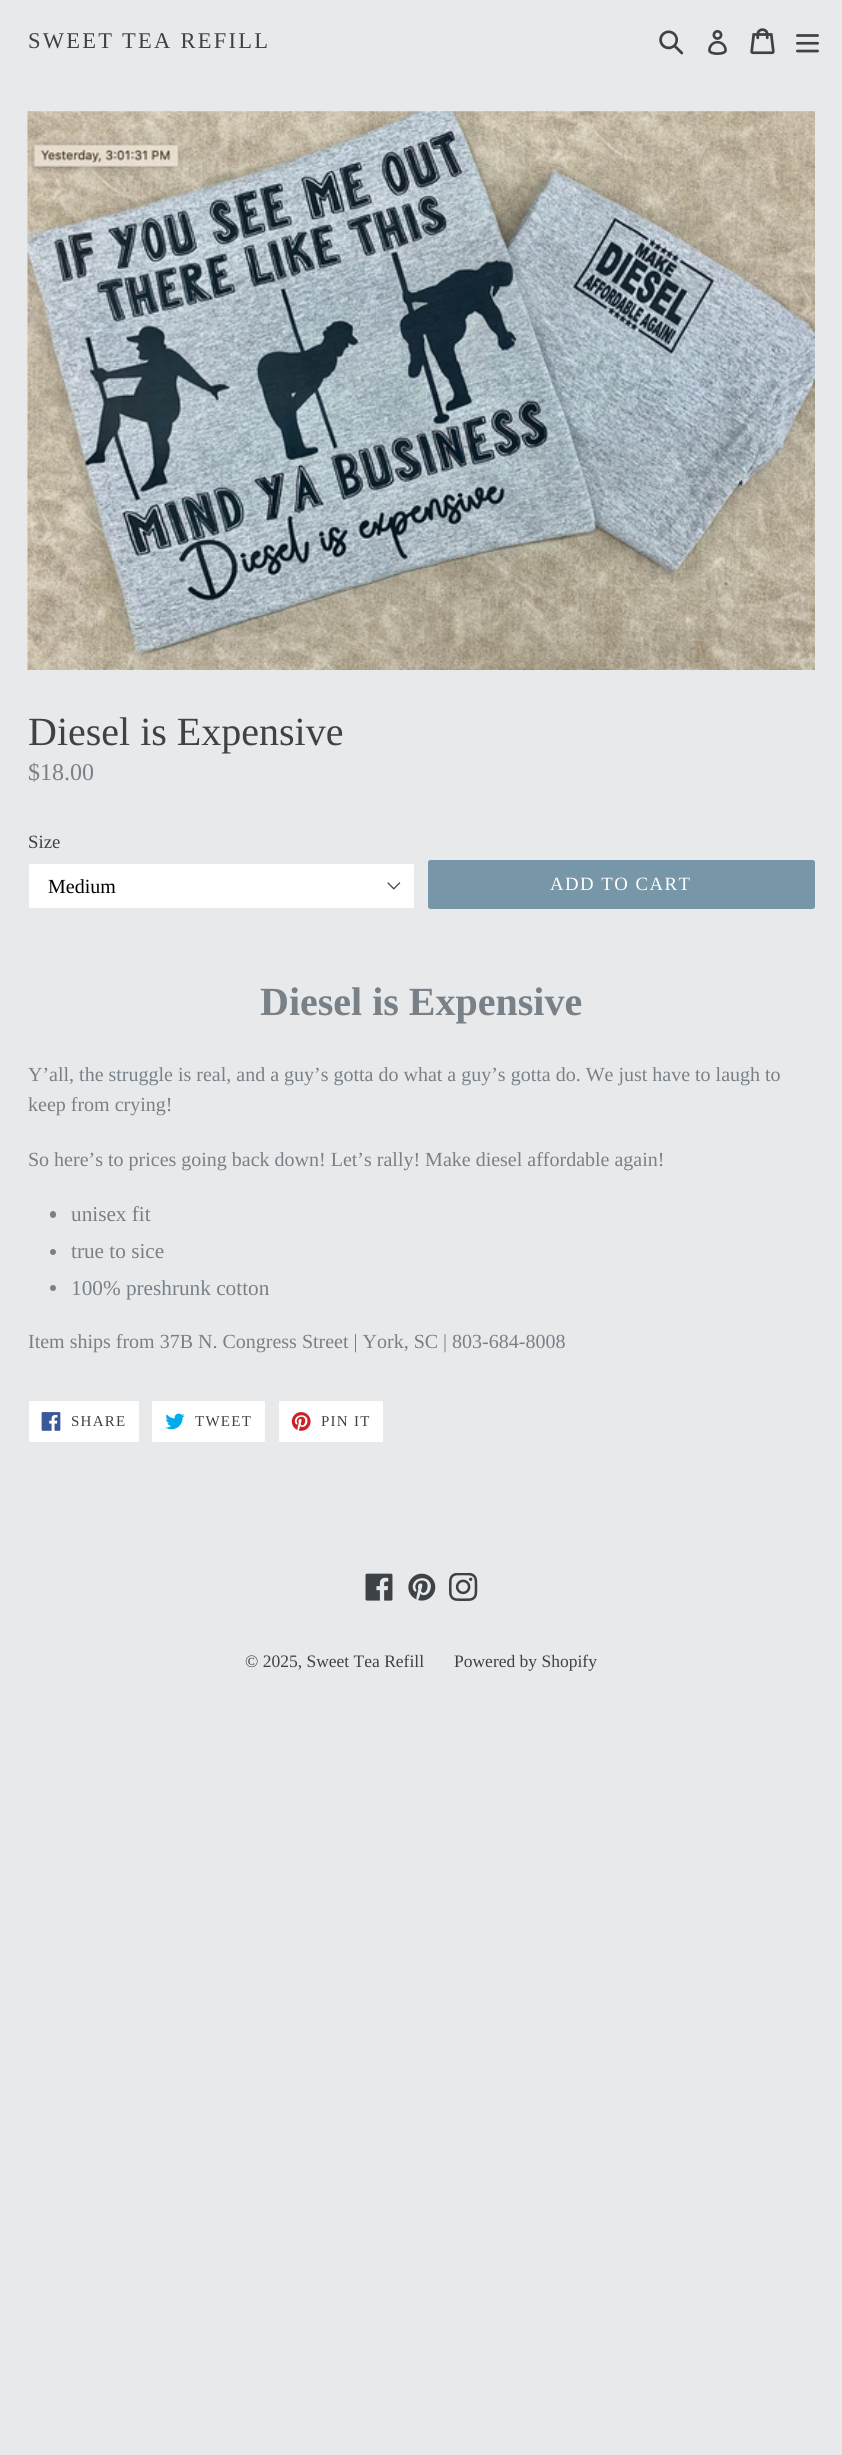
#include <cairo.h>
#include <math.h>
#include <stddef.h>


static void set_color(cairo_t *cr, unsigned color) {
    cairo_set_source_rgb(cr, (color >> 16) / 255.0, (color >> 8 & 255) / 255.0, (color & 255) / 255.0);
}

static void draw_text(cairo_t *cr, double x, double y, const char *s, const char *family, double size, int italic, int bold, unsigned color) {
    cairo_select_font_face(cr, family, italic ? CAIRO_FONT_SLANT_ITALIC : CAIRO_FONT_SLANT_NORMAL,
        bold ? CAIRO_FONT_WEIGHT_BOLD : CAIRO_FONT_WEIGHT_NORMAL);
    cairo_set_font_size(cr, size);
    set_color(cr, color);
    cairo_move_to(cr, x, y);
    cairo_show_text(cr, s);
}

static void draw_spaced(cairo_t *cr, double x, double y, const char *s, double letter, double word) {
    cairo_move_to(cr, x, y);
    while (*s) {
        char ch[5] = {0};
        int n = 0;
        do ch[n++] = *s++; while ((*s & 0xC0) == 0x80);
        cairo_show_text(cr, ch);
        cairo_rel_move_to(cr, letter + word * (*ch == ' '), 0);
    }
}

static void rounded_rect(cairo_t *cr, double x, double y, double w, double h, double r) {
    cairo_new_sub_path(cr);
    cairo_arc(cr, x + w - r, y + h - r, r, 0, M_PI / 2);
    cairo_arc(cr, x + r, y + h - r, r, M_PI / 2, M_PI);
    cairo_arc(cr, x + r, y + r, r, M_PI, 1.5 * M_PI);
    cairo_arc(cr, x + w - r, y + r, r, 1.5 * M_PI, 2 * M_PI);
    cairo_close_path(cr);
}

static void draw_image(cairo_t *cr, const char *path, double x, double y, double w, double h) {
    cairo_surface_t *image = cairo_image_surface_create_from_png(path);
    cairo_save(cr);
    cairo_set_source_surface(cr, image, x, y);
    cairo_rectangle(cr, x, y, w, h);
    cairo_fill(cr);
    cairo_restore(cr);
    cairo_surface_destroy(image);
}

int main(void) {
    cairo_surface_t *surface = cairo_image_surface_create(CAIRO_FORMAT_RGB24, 842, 2455);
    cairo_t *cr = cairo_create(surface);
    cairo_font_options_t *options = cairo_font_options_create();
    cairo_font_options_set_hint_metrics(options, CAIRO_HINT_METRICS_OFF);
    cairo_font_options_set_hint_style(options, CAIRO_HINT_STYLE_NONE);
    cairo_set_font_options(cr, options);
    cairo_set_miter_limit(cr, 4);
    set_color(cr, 0xE8E9EB);
    cairo_paint(cr);
    cairo_select_font_face(cr, "Liberation Serif", CAIRO_FONT_SLANT_NORMAL, CAIRO_FONT_WEIGHT_NORMAL);
    cairo_set_font_size(cr, 22.5);
    set_color(cr, 0x3D4246);
    draw_spaced(cr, 28, 48, "SWEET TEA REFILL", 2.25, 0);
    draw_image(cr, "assets/img1.png", 659, 30, 25, 25);
    draw_image(cr, "assets/img2.png", 708, 30, 19, 25);
    draw_image(cr, "assets/img3.png", 750, 28, 25, 27);
    draw_image(cr, "assets/img4.png", 796, 34, 23, 19);
    draw_image(cr, "assets/img5.png", 27, 111, 788, 559);
    draw_text(cr, 28, 745, "Diesel is Expensive", "Liberation Serif", 40, 0, 0, 0x3D4246);
    draw_text(cr, 28, 780, "$18.00", "Liberation Serif", 24, 0, 0, 0x788188);
    draw_text(cr, 28, 848, "Size", "Liberation Serif", 18.75, 0, 0, 0x3D4246);
    set_color(cr, 0xFFFFFF);
    rounded_rect(cr, 28, 863, 387, 46, 2.5);
    cairo_fill(cr);
    draw_image(cr, "assets/img6.png", 387, 882, 14, 8);
    rounded_rect(cr, 28.5, 863.5, 386, 45, 2);
    set_color(cr, 0xE8E9EB);
    cairo_set_line_width(cr, 1);
    cairo_stroke(cr);
    draw_text(cr, 48, 893, "Medium", "Liberation Serif", 20, 0, 0, 0x000000);
    set_color(cr, 0x7796A8);
    rounded_rect(cr, 428, 860, 387, 49, 2.5);
    cairo_fill(cr);
    cairo_set_font_size(cr, 18.75);
    set_color(cr, 0xFFFFFF);
    draw_spaced(cr, 550, 890, "ADD TO CART", 1.5, 0);
    draw_text(cr, 260, 1015, "Diesel is Expensive", "Liberation Serif", 40, 0, 1, 0x788188);
    draw_text(cr, 28, 1081, "Y’all, the struggle is real, and a guy’s gotta do what a guy’s gotta do. We just have to laugh to", "Liberation Serif", 20, 0, 0, 0x788188);
    draw_text(cr, 28, 1111, "keep from crying!", "Liberation Serif", 20, 0, 0, 0x788188);
    draw_text(cr, 28, 1166, "So here’s to prices going back down! Let’s rally! Make diesel affordable again!", "Liberation Serif", 20, 0, 0, 0x788188);
    rounded_rect(cr, 50, 1211, 6, 7, 3);
    cairo_fill(cr);
    draw_text(cr, 71, 1221, "unisex fit", "Liberation Serif", 21.25, 0, 0, 0x788188);
    cairo_new_path(cr);
    cairo_arc(cr, 53, 1252, 3, 0, 2 * M_PI);
    cairo_fill(cr);
    draw_text(cr, 71, 1258, "true to sice", "Liberation Serif", 21.25, 0, 0, 0x788188);
    cairo_new_path(cr);
    cairo_arc(cr, 53, 1288, 3, 0, 2 * M_PI);
    cairo_fill(cr);
    draw_text(cr, 71, 1295, "100% preshrunk cotton", "Liberation Serif", 21.25, 0, 0, 0x788188);
    draw_text(cr, 28, 1348, "Item ships from 37B N. Congress Street | York, SC | 803-684-8008", "Liberation Serif", 20, 0, 0, 0x788188);
    set_color(cr, 0xFFFFFF);
    rounded_rect(cr, 28.5, 1400.5, 111, 42, 2);
    cairo_fill_preserve(cr);
    set_color(cr, 0xE8E9EB);
    cairo_stroke(cr);
    draw_image(cr, "assets/img7.png", 41, 1412, 20, 19);
    cairo_set_font_size(cr, 15);
    set_color(cr, 0x3D4246);
    draw_spaced(cr, 71, 1426, "SHARE", 1.25, 0);
    set_color(cr, 0xFFFFFF);
    rounded_rect(cr, 151.5, 1400.5, 114, 42, 2);
    cairo_fill_preserve(cr);
    set_color(cr, 0xE8E9EB);
    cairo_stroke(cr);
    draw_image(cr, "assets/img8.png", 165, 1413, 20, 17);
    set_color(cr, 0x3D4246);
    draw_spaced(cr, 195, 1426, "TWEET", 1.25, 0);
    set_color(cr, 0xFFFFFF);
    rounded_rect(cr, 278.5, 1400.5, 105, 42, 2);
    cairo_fill_preserve(cr);
    set_color(cr, 0xE8E9EB);
    cairo_stroke(cr);
    draw_image(cr, "assets/img9.png", 291, 1412, 20, 19);
    set_color(cr, 0x3D4246);
    draw_spaced(cr, 321, 1426, "PIN IT", 1.25, 0);
    draw_image(cr, "assets/img10.png", 365, 1573, 28, 28);
    draw_image(cr, "assets/img11.png", 408, 1573, 28, 28);
    draw_image(cr, "assets/img12.png", 449, 1573, 29, 28);
    draw_text(cr, 245, 1667, "© 2025, Sweet Tea Refill", "Liberation Serif", 17.5, 0, 0, 0x3D4246);
    draw_text(cr, 454, 1667, "Powered by Shopify", "Liberation Serif", 17.5, 0, 0, 0x3D4246);
    cairo_surface_write_to_png(surface, "output.png");
    cairo_font_options_destroy(options);
    cairo_destroy(cr);
    cairo_surface_destroy(surface);
    return 0;
}
